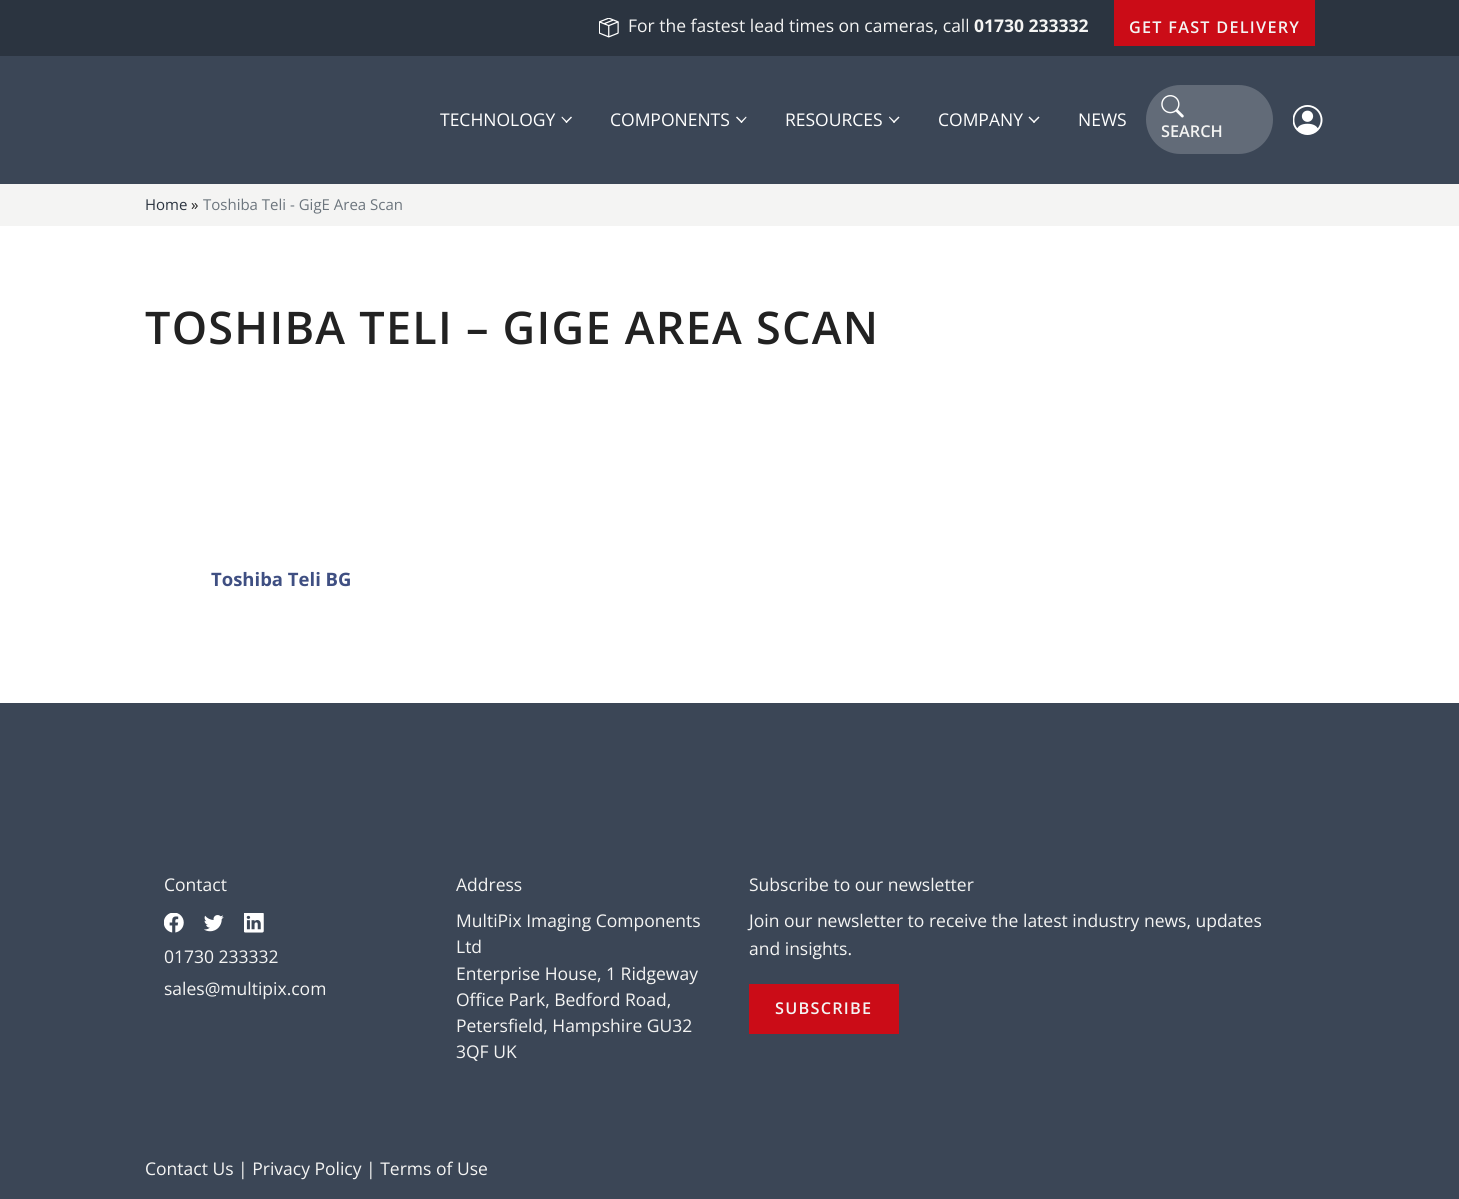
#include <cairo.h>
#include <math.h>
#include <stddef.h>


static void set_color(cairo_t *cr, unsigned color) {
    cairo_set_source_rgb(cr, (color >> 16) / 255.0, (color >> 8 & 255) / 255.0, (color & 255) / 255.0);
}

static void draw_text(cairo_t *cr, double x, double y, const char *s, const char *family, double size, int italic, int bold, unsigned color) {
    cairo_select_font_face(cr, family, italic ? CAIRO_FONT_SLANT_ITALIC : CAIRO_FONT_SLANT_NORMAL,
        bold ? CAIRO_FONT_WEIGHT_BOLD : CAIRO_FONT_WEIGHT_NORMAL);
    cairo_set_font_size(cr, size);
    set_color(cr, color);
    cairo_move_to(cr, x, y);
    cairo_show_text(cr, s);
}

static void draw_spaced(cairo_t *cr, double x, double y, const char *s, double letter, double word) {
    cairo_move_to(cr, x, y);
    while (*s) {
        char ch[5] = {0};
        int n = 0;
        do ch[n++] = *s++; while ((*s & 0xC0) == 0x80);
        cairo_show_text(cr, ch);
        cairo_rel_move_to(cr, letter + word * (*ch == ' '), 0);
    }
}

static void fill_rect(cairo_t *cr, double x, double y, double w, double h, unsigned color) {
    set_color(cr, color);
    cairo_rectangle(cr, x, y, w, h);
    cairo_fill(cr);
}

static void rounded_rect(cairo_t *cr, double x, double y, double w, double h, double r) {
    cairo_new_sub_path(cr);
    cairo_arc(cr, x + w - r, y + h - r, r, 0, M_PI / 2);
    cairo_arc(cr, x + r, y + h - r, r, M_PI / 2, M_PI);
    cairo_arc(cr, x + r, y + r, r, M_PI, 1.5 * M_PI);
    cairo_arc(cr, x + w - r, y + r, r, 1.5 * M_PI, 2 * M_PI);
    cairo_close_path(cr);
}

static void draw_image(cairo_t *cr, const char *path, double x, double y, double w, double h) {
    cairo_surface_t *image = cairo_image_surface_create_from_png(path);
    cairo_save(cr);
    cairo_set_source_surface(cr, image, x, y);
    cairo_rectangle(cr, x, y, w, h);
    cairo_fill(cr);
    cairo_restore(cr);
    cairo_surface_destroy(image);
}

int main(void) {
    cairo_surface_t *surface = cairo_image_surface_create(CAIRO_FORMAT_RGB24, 1459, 1199);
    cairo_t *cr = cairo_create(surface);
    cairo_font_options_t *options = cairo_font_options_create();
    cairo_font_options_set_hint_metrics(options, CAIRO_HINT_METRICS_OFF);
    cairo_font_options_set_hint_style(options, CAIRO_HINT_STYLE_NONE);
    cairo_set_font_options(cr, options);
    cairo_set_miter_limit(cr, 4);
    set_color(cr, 0xFFFFFF);
    cairo_paint(cr);
    fill_rect(cr, 0, 0, 1459, 56, 0x2B3440);
    fill_rect(cr, 1114, 0, 201, 46, 0xCB0C17);
    draw_image(cr, "assets/img1.png", 599, 18, 20, 20);
    draw_text(cr, 628, 32, "For the fastest lead times on cameras, call", "Open Sans", 17.5, 0, 0, 0xF4F4F3);
    draw_text(cr, 974, 32, "01730 233332", "Open Sans", 17.5, 0, 1, 0xF4F4F3);
    cairo_select_font_face(cr, "Open Sans SemiBold", CAIRO_FONT_SLANT_NORMAL, CAIRO_FONT_WEIGHT_NORMAL);
    cairo_set_font_size(cr, 16.25);
    draw_spaced(cr, 1129, 33, "GET FAST DELIVERY", 1.25, 0);
    fill_rect(cr, 0, 56, 1459, 128, 0x3B4656);
    draw_text(cr, 440, 126, "TECHNOLOGY", "Open Sans", 17.5, 0, 0, 0xFFFFFF);
    cairo_new_path(cr);
    cairo_move_to(cr, 571, 116.5);
    cairo_line_to(cr, 572, 117.5);
    cairo_line_to(cr, 566.5, 123);
    cairo_line_to(cr, 565.5, 122);
    cairo_close_path(cr);
    cairo_fill(cr);
    cairo_new_path(cr);
    cairo_move_to(cr, 562, 116.5);
    cairo_line_to(cr, 567.5, 122);
    cairo_line_to(cr, 566.5, 123);
    cairo_line_to(cr, 561.5, 117.5);
    cairo_close_path(cr);
    cairo_fill(cr);
    draw_text(cr, 610, 126, "COMPONENTS", "Open Sans", 17.5, 0, 0, 0xFFFFFF);
    cairo_new_path(cr);
    cairo_move_to(cr, 746, 116.5);
    cairo_line_to(cr, 746.5, 117.5);
    cairo_line_to(cr, 741.5, 123);
    cairo_line_to(cr, 740.5, 122);
    cairo_close_path(cr);
    cairo_fill(cr);
    cairo_new_path(cr);
    cairo_move_to(cr, 737, 116.5);
    cairo_line_to(cr, 742.5, 122);
    cairo_line_to(cr, 741.5, 123);
    cairo_line_to(cr, 736, 117.5);
    cairo_close_path(cr);
    cairo_fill(cr);
    draw_text(cr, 785, 126, "RESOURCES", "Open Sans", 17.5, 0, 0, 0xFFFFFF);
    cairo_new_path(cr);
    cairo_move_to(cr, 898.5, 116.5);
    cairo_line_to(cr, 899.5, 117.5);
    cairo_line_to(cr, 894, 123);
    cairo_line_to(cr, 893, 122);
    cairo_close_path(cr);
    cairo_fill(cr);
    cairo_new_path(cr);
    cairo_move_to(cr, 889.5, 116.5);
    cairo_line_to(cr, 895, 122);
    cairo_line_to(cr, 894, 123);
    cairo_line_to(cr, 889, 117.5);
    cairo_close_path(cr);
    cairo_fill(cr);
    draw_text(cr, 938, 126, "COMPANY", "Open Sans", 17.5, 0, 0, 0xFFFFFF);
    cairo_new_path(cr);
    cairo_move_to(cr, 1038.5, 116.5);
    cairo_line_to(cr, 1039.5, 117.5);
    cairo_line_to(cr, 1034, 123);
    cairo_line_to(cr, 1033, 122);
    cairo_close_path(cr);
    cairo_fill(cr);
    cairo_new_path(cr);
    cairo_move_to(cr, 1029.5, 116.5);
    cairo_line_to(cr, 1035, 122);
    cairo_line_to(cr, 1034, 123);
    cairo_line_to(cr, 1028.5, 117.5);
    cairo_close_path(cr);
    cairo_fill(cr);
    draw_text(cr, 1078, 126, "NEWS", "Open Sans", 17.5, 0, 0, 0xFFFFFF);
    draw_image(cr, "assets/img2.png", 1293, 105, 30, 30);
    set_color(cr, 0x626B78);
    rounded_rect(cr, 1146, 85, 127, 69, 34.5);
    cairo_fill(cr);
    draw_image(cr, "assets/img3.png", 1161, 95, 23, 23);
    draw_text(cr, 1161, 137, "SEARCH", "Open Sans SemiBold", 16.25, 0, 0, 0xF4F4F3);
    fill_rect(cr, 0, 184, 1459, 42, 0xF4F4F3);
    draw_text(cr, 145, 210, "Home", "Open Sans", 15, 0, 0, 0x2B3440);
    draw_text(cr, 191, 210, "»", "Open Sans", 15, 0, 0, 0x222222);
    draw_text(cr, 203, 210, "Toshiba Teli - GigE Area Scan", "Open Sans", 15, 0, 0, 0x6C757D);
    cairo_select_font_face(cr, "Open Sans SemiBold", CAIRO_FONT_SLANT_NORMAL, CAIRO_FONT_WEIGHT_NORMAL);
    cairo_set_font_size(cr, 45);
    set_color(cr, 0x222222);
    draw_spaced(cr, 145, 344, "TOSHIBA TELI – GIGE AREA SCAN", 1.25, 0);
    draw_text(cr, 211, 586, "Toshiba Teli BG", "Open Sans", 18.5, 0, 1, 0x3F4F82);
    fill_rect(cr, 0, 703, 1459, 496, 0x3B4656);
    draw_text(cr, 164, 891, "Contact", "Open Sans", 17.5, 0, 0, 0xF4F4F3);
    draw_image(cr, "assets/img4.png", 164, 913, 20, 20);
    draw_image(cr, "assets/img5.png", 204, 915, 20, 17);
    draw_image(cr, "assets/img6.png", 244, 913, 20, 20);
    draw_text(cr, 164, 963, "01730 233332", "Open Sans", 17.5, 0, 0, 0xF4F4F3);
    draw_text(cr, 164, 995, "sales@multipix.com", "Open Sans", 17.5, 0, 0, 0xF4F4F3);
    draw_text(cr, 456, 891, "Address", "Open Sans", 17.5, 0, 0, 0xF4F4F3);
    draw_text(cr, 456, 927, "MultiPix Imaging Components", "Open Sans", 17.5, 0, 0, 0xF4F4F3);
    draw_text(cr, 456, 953, "Ltd", "Open Sans", 17.5, 0, 0, 0xF4F4F3);
    draw_text(cr, 456, 980, "Enterprise House, 1 Ridgeway", "Open Sans", 17.5, 0, 0, 0xF4F4F3);
    draw_text(cr, 456, 1006, "Office Park, Bedford Road,", "Open Sans", 17.5, 0, 0, 0xF4F4F3);
    draw_text(cr, 456, 1032, "Petersfield, Hampshire GU32", "Open Sans", 17.5, 0, 0, 0xF4F4F3);
    draw_text(cr, 456, 1058, "3QF UK", "Open Sans", 17.5, 0, 0, 0xF4F4F3);
    draw_text(cr, 749, 891, "Subscribe to our newsletter", "Open Sans", 17.5, 0, 0, 0xF4F4F3);
    draw_text(cr, 749, 927, "Join our newsletter to receive the latest industry news, updates", "Open Sans", 17.5, 0, 0, 0xF4F4F3);
    draw_text(cr, 749, 955, "and insights.", "Open Sans", 17.5, 0, 0, 0xF4F4F3);
    fill_rect(cr, 749, 984, 150, 50, 0xCB0C17);
    cairo_select_font_face(cr, "Open Sans SemiBold", CAIRO_FONT_SLANT_NORMAL, CAIRO_FONT_WEIGHT_NORMAL);
    cairo_set_font_size(cr, 16.25);
    set_color(cr, 0xF4F4F3);
    draw_spaced(cr, 775, 1014, "SUBSCRIBE", 1.25, 0);
    draw_text(cr, 145, 1175, "Contact Us | Privacy Policy | Terms of Use", "Open Sans", 17.5, 0, 0, 0xF4F4F3);
    cairo_surface_write_to_png(surface, "output.png");
    cairo_font_options_destroy(options);
    cairo_destroy(cr);
    cairo_surface_destroy(surface);
    return 0;
}
